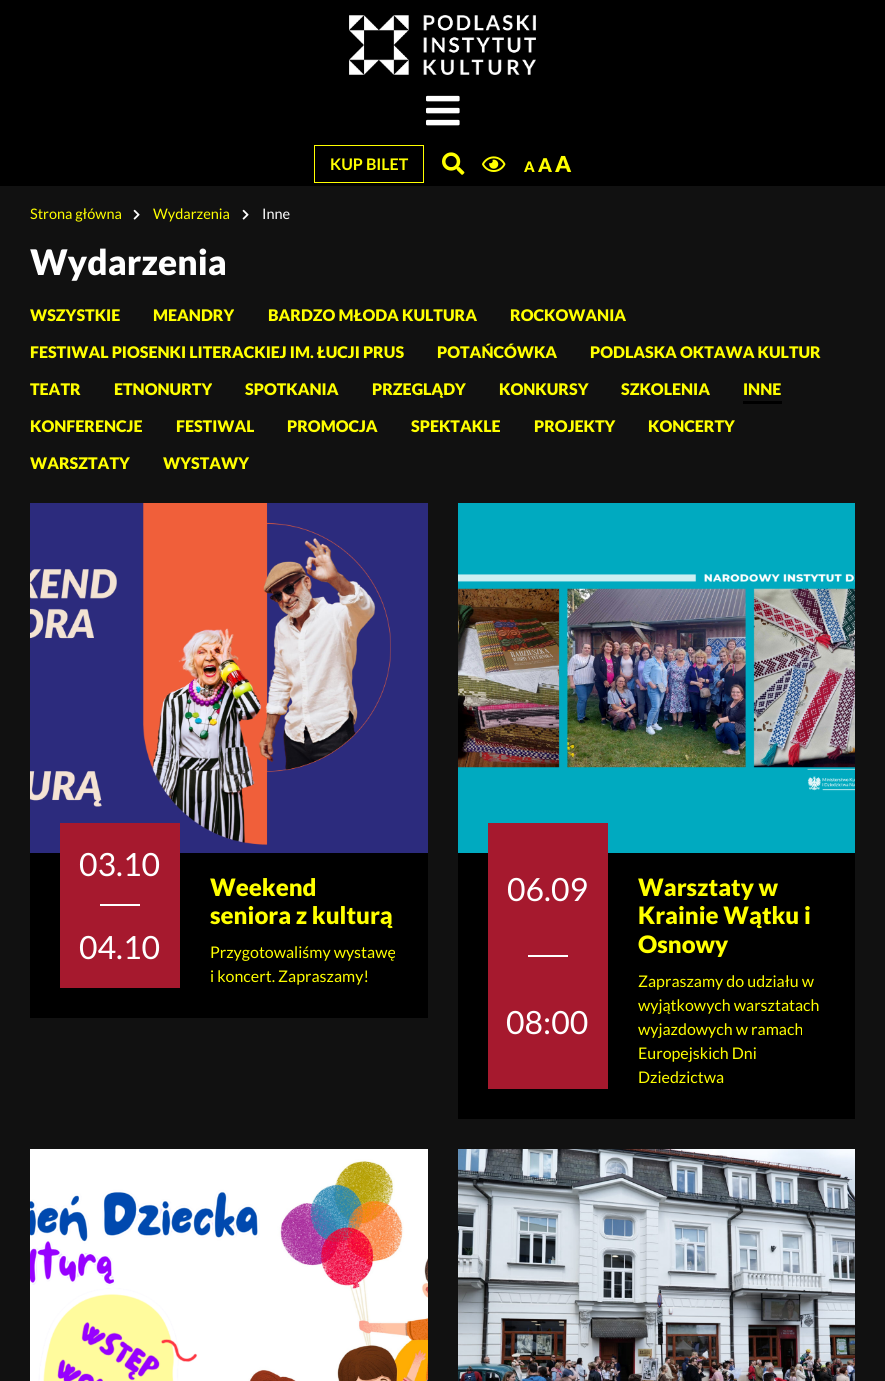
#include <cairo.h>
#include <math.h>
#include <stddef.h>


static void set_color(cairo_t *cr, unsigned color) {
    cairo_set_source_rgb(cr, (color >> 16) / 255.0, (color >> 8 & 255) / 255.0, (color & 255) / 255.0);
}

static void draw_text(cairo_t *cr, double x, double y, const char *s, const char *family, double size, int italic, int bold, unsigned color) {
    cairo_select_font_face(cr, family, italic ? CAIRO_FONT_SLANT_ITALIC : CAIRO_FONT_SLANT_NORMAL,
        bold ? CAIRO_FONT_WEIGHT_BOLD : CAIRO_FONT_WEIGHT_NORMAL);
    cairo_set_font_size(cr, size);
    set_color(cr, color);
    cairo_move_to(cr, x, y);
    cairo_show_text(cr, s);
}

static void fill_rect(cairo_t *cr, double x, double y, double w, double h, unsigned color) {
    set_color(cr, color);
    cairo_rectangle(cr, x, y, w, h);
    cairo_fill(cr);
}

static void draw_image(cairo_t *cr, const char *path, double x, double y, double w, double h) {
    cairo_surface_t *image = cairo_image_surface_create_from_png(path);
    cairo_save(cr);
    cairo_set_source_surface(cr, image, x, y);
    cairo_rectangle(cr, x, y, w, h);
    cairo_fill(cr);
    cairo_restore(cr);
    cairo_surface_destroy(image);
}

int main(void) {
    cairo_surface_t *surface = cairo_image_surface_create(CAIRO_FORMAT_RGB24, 885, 1381);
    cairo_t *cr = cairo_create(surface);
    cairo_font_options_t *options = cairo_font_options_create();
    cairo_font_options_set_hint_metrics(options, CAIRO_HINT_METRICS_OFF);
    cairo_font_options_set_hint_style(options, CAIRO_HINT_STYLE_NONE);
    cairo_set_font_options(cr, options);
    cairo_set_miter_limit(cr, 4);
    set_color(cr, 0x111111);
    cairo_paint(cr);
    fill_rect(cr, 0, 0, 885, 186, 0x000000);
    draw_image(cr, "assets/img1.png", 349, 15, 187, 60);
    draw_image(cr, "assets/img2.png", 426, 95, 34, 31);
    cairo_rectangle(cr, 314.5, 145.5, 109, 37);
    set_color(cr, 0xFFFF00);
    cairo_set_line_width(cr, 1);
    cairo_stroke(cr);
    draw_text(cr, 330, 170, "KUP BILET", "Lato", 16, 0, 1, 0xFFFF00);
    draw_image(cr, "assets/img3.png", 442, 152, 23, 23);
    draw_image(cr, "assets/img4.png", 482, 156, 24, 16);
    draw_text(cr, 524, 172, "A", "Lato Black", 14.5, 0, 0, 0xFFFF00);
    draw_text(cr, 538, 172, "A", "Lato Black", 19, 0, 0, 0xFFFF00);
    draw_text(cr, 555, 172, "A", "Lato Black", 22, 0, 0, 0xFFFF00);
    draw_text(cr, 30, 219, "Strona główna", "Lato", 14.5, 0, 0, 0xFFFF00);
    draw_image(cr, "assets/img5.png", 133, 209, 7, 11);
    draw_text(cr, 153, 219, "Wydarzenia", "Lato", 14.5, 0, 0, 0xFFFF00);
    draw_image(cr, "assets/img5.png", 242, 209, 7, 11);
    draw_text(cr, 262, 219, "Inne", "Lato", 14.5, 0, 0, 0xFFFFFF);
    draw_text(cr, 30, 275, "Wydarzenia", "Lato Black", 35.25, 0, 0, 0xFFFFFF);
    draw_text(cr, 30, 321, "WSZYSTKIE", "Lato Black", 16, 0, 0, 0xFFFF00);
    draw_text(cr, 153, 321, "MEANDRY", "Lato Black", 16, 0, 0, 0xFFFF00);
    draw_text(cr, 268, 321, "BARDZO MŁODA KULTURA", "Lato Black", 16, 0, 0, 0xFFFF00);
    draw_text(cr, 510, 321, "ROCKOWANIA", "Lato Black", 16, 0, 0, 0xFFFF00);
    draw_text(cr, 30, 358, "FESTIWAL PIOSENKI LITERACKIEJ IM. ŁUCJI PRUS", "Lato Black", 16, 0, 0, 0xFFFF00);
    draw_text(cr, 437, 358, "POTAŃCÓWKA", "Lato Black", 16, 0, 0, 0xFFFF00);
    draw_text(cr, 590, 358, "PODLASKA OKTAWA KULTUR", "Lato Black", 16, 0, 0, 0xFFFF00);
    draw_text(cr, 30, 395, "TEATR", "Lato Black", 16, 0, 0, 0xFFFF00);
    draw_text(cr, 114, 395, "ETNONURTY", "Lato Black", 16, 0, 0, 0xFFFF00);
    draw_text(cr, 245, 395, "SPOTKANIA", "Lato Black", 16, 0, 0, 0xFFFF00);
    draw_text(cr, 372, 395, "PRZEGLĄDY", "Lato Black", 16, 0, 0, 0xFFFF00);
    draw_text(cr, 499, 395, "KONKURSY", "Lato Black", 16, 0, 0, 0xFFFF00);
    draw_text(cr, 621, 395, "SZKOLENIA", "Lato Black", 16, 0, 0, 0xFFFF00);
    fill_rect(cr, 743, 401, 39, 3, 0x000000);
    draw_text(cr, 743, 395, "INNE", "Lato Black", 16, 0, 0, 0xFFFF00);
    draw_text(cr, 30, 432, "KONFERENCJE", "Lato Black", 16, 0, 0, 0xFFFF00);
    draw_text(cr, 176, 432, "FESTIWAL", "Lato Black", 16, 0, 0, 0xFFFF00);
    draw_text(cr, 287, 432, "PROMOCJA", "Lato Black", 16, 0, 0, 0xFFFF00);
    draw_text(cr, 411, 432, "SPEKTAKLE", "Lato Black", 16, 0, 0, 0xFFFF00);
    draw_text(cr, 534, 432, "PROJEKTY", "Lato Black", 16, 0, 0, 0xFFFF00);
    draw_text(cr, 648, 432, "KONCERTY", "Lato Black", 16, 0, 0, 0xFFFF00);
    draw_text(cr, 30, 469, "WARSZTATY", "Lato Black", 16, 0, 0, 0xFFFF00);
    draw_text(cr, 163, 469, "WYSTAWY", "Lato Black", 16, 0, 0, 0xFFFF00);
    draw_image(cr, "assets/img6.png", 30, 503, 398, 350);
    fill_rect(cr, 30, 853, 398, 165, 0x000000);
    fill_rect(cr, 60, 823, 120, 165, 0xA6192E);
    draw_text(cr, 79, 876, "03.10", "Lato", 32, 0, 0, 0xFFFFFF);
    fill_rect(cr, 100, 904, 40, 2, 0xFFFFFF);
    draw_text(cr, 79, 959, "04.10", "Lato", 32, 0, 0, 0xFFFFFF);
    draw_text(cr, 210, 896, "Weekend", "Lato Black", 24, 0, 0, 0xFFFF00);
    draw_text(cr, 210, 924, "seniora z kulturą", "Lato Black", 24, 0, 0, 0xFFFF00);
    draw_text(cr, 210, 958, "Przygotowaliśmy wystawę", "Lato", 16, 0, 0, 0xFFFF00);
    draw_text(cr, 210, 982, "i koncert. Zapraszamy!", "Lato", 16, 0, 0, 0xFFFF00);
    draw_image(cr, "assets/img7.png", 458, 503, 397, 350);
    fill_rect(cr, 458, 853, 397, 266, 0x000000);
    fill_rect(cr, 488, 823, 120, 266, 0xA6192E);
    draw_text(cr, 507, 901, "06.09", "Lato", 32, 0, 0, 0xFFFFFF);
    fill_rect(cr, 528, 955, 40, 2, 0xFFFFFF);
    draw_text(cr, 506, 1034, "08:00", "Lato", 32, 0, 0, 0xFFFFFF);
    draw_text(cr, 638, 896, "Warsztaty w", "Lato Black", 24, 0, 0, 0xFFFF00);
    draw_text(cr, 638, 924, "Krainie Wątku i", "Lato Black", 24, 0, 0, 0xFFFF00);
    draw_text(cr, 638, 953, "Osnowy", "Lato Black", 24, 0, 0, 0xFFFF00);
    draw_text(cr, 638, 987, "Zapraszamy do udziału w", "Lato", 16, 0, 0, 0xFFFF00);
    draw_text(cr, 638, 1011, "wyjątkowych warsztatach", "Lato", 16, 0, 0, 0xFFFF00);
    draw_text(cr, 638, 1035, "wyjazdowych w ramach", "Lato", 16, 0, 0, 0xFFFF00);
    draw_text(cr, 638, 1059, "Europejskich Dni", "Lato", 16, 0, 0, 0xFFFF00);
    draw_text(cr, 638, 1083, "Dziedzictwa", "Lato", 16, 0, 0, 0xFFFF00);
    draw_image(cr, "assets/img8.png", 30, 1149, 398, 232);
    draw_image(cr, "assets/img9.png", 458, 1149, 397, 232);
    cairo_surface_write_to_png(surface, "output.png");
    cairo_font_options_destroy(options);
    cairo_destroy(cr);
    cairo_surface_destroy(surface);
    return 0;
}
